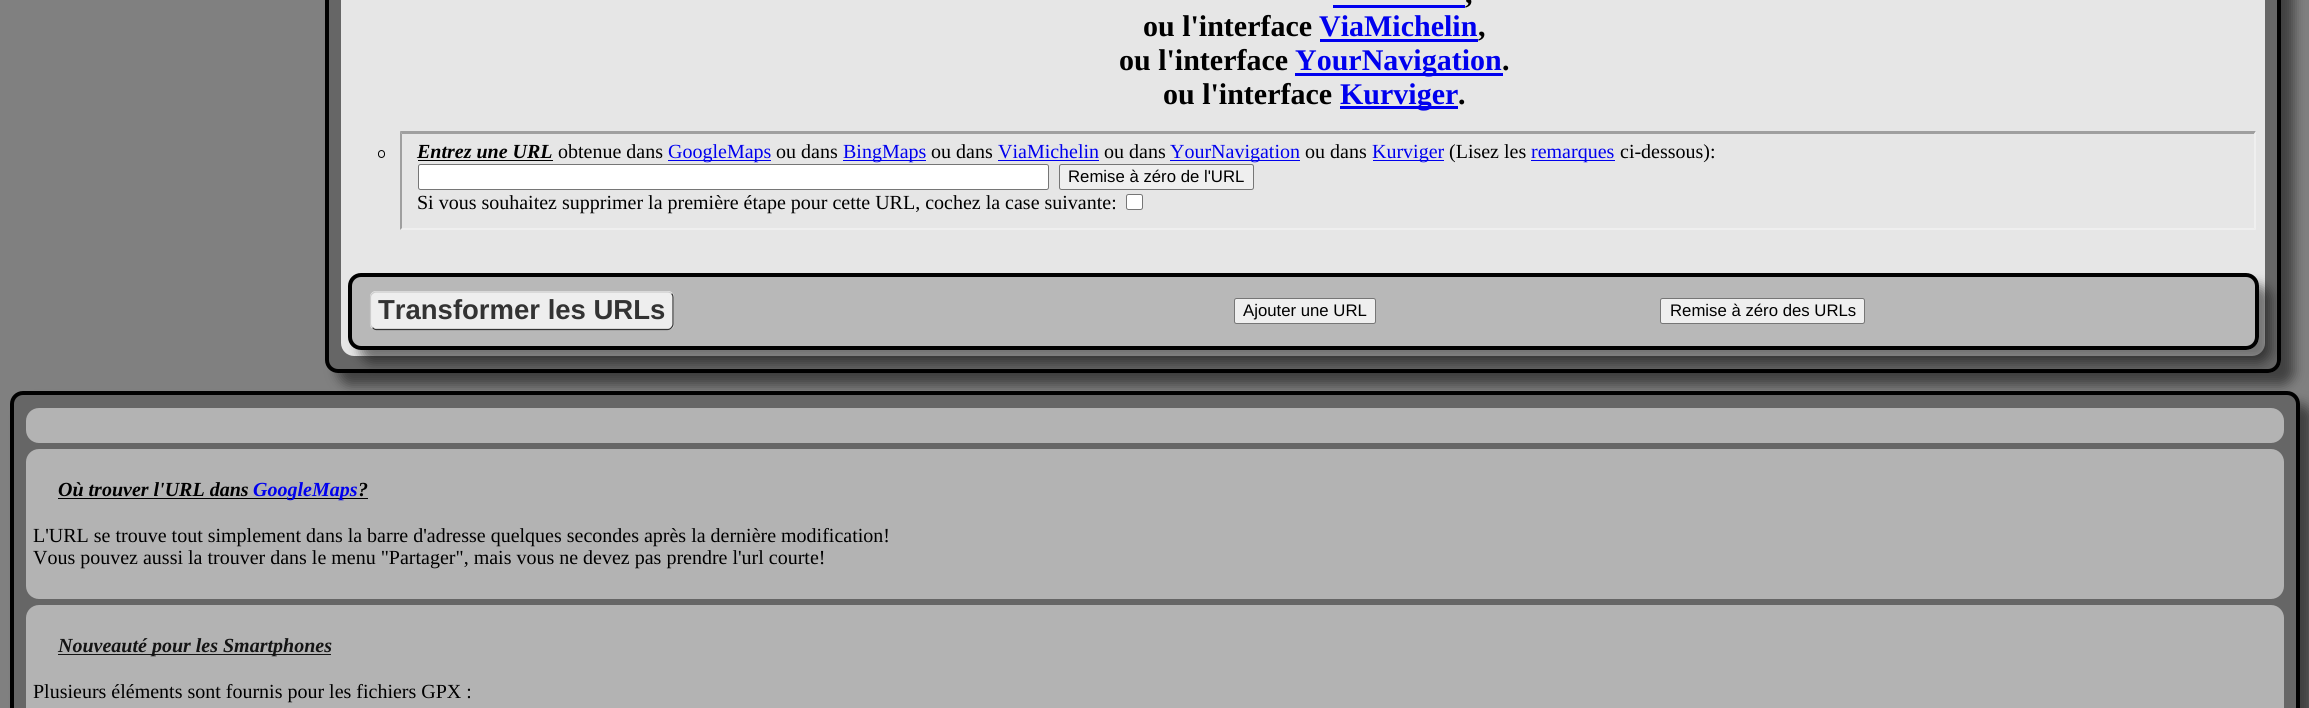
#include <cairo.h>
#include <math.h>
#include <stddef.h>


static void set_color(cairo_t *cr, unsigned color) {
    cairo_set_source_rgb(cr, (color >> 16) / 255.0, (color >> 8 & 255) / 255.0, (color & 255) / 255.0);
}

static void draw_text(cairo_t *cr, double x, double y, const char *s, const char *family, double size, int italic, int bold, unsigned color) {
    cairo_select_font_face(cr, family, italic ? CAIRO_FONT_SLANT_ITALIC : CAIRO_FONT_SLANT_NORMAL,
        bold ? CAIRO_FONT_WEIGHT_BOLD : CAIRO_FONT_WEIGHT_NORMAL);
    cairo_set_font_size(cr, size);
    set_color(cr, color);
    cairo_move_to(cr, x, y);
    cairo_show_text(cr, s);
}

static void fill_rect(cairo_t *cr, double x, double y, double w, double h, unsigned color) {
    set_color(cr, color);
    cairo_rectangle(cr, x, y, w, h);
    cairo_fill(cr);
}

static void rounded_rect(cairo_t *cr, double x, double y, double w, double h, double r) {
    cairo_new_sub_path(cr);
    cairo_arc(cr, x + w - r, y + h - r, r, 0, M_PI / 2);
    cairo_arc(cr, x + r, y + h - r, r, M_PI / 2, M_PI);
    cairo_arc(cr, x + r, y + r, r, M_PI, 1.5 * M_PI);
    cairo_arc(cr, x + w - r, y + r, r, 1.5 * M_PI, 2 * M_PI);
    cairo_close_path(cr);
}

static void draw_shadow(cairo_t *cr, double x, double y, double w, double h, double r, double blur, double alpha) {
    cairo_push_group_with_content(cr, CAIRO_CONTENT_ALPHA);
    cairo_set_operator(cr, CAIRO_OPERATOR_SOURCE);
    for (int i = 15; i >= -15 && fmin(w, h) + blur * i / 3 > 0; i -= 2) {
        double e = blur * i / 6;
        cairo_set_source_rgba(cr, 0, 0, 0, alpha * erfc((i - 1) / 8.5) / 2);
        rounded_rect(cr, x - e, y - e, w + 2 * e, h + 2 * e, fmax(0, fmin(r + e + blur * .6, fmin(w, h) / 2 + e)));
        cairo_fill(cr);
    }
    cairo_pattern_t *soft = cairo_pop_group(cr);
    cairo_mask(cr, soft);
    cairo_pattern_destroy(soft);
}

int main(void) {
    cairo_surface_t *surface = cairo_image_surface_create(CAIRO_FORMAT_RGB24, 2309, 708);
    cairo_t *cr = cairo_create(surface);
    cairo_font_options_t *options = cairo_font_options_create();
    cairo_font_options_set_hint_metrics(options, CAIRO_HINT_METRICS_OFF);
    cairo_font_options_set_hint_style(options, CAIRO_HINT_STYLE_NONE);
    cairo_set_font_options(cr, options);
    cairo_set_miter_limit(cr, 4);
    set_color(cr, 0x808080);
    cairo_paint(cr);
    cairo_save(cr);
    cairo_set_fill_rule(cr, CAIRO_FILL_RULE_EVEN_ODD);
    cairo_new_path(cr);
    cairo_move_to(cr, 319, 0);
    cairo_line_to(cr, 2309, 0);
    cairo_line_to(cr, 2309, 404);
    cairo_line_to(cr, 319, 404);
    cairo_close_path(cr);
    cairo_move_to(cr, 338, -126);
    cairo_line_to(cr, 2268, -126);
    cairo_curve_to(cr, 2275, -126, 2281, -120, 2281, -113);
    cairo_line_to(cr, 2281, 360);
    cairo_curve_to(cr, 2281, 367, 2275, 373, 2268, 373);
    cairo_line_to(cr, 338, 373);
    cairo_curve_to(cr, 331, 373, 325, 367, 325, 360);
    cairo_line_to(cr, 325, -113);
    cairo_curve_to(cr, 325, -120, 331, -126, 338, -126);
    cairo_close_path(cr);
    cairo_clip(cr);
    set_color(cr, 0x000000);
    draw_shadow(cr, 338, -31, 1956, 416, 13, 6, 0.5);
    cairo_restore(cr);
    cairo_set_source_rgba(cr, 0, 0, 0, 0.2);
    rounded_rect(cr, 327, -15, 1952, 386, 11);
    cairo_fill_preserve(cr);
    set_color(cr, 0x000000);
    cairo_set_line_width(cr, 4);
    cairo_stroke(cr);
    set_color(cr, 0xE6E6E6);
    rounded_rect(cr, 341, -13, 1924, 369, 13);
    cairo_fill(cr);
    fill_rect(cr, 1333, 5, 132, 3, 0x0000EE);
    draw_text(cr, 1465, 3, ",", "Liberation Serif", 30, 0, 1, 0x000000);
    draw_text(cr, 1143, 36, "ou l'interface", "Liberation Serif", 30, 0, 1, 0x000000);
    draw_text(cr, 1319, 36, "ViaMichelin", "Liberation Serif", 30, 0, 1, 0x0000EE);
    fill_rect(cr, 1320, 39, 158, 3, 0x0000EE);
    draw_text(cr, 1478, 36, ",", "Liberation Serif", 30, 0, 1, 0x000000);
    draw_text(cr, 1119, 70, "ou l'interface", "Liberation Serif", 30, 0, 1, 0x000000);
    fill_rect(cr, 1295, 73, 208, 3, 0x0000EE);
    draw_text(cr, 1295, 70, "YourNavigation", "Liberation Serif", 30, 0, 1, 0x0000EE);
    draw_text(cr, 1502, 70, ".", "Liberation Serif", 30, 0, 1, 0x000000);
    draw_text(cr, 1163, 104, "ou l'interface", "Liberation Serif", 30, 0, 1, 0x000000);
    fill_rect(cr, 1340, 106, 118, 3, 0x0000EE);
    draw_text(cr, 1340, 104, "Kurviger", "Liberation Serif", 30, 0, 1, 0x0000EE);
    draw_text(cr, 1458, 104, ".", "Liberation Serif", 30, 0, 1, 0x000000);
    rounded_rect(cr, 378.5, 150.5, 6, 7, 3);
    cairo_set_line_width(cr, 1);
    cairo_stroke(cr);
    set_color(cr, 0x9F9F9F);
    cairo_new_path(cr);
    cairo_move_to(cr, 400, 131);
    cairo_line_to(cr, 2256, 131);
    cairo_line_to(cr, 2254, 134);
    cairo_line_to(cr, 402, 134);
    cairo_close_path(cr);
    cairo_fill(cr);
    set_color(cr, 0xEFEFEF);
    cairo_new_path(cr);
    cairo_move_to(cr, 2256, 131);
    cairo_line_to(cr, 2256, 230);
    cairo_line_to(cr, 2254, 228);
    cairo_line_to(cr, 2254, 134);
    cairo_close_path(cr);
    cairo_fill(cr);
    cairo_new_path(cr);
    cairo_move_to(cr, 2256, 230);
    cairo_line_to(cr, 400, 230);
    cairo_line_to(cr, 402, 228);
    cairo_line_to(cr, 2254, 228);
    cairo_close_path(cr);
    cairo_fill(cr);
    set_color(cr, 0x9F9F9F);
    cairo_new_path(cr);
    cairo_move_to(cr, 400, 230);
    cairo_line_to(cr, 400, 131);
    cairo_line_to(cr, 402, 134);
    cairo_line_to(cr, 402, 228);
    cairo_close_path(cr);
    cairo_fill(cr);
    draw_text(cr, 417, 158, "Entrez une URL", "Liberation Serif", 20, 1, 1, 0x000000);
    fill_rect(cr, 418, 160, 135, 1, 0x000000);
    draw_text(cr, 558, 158, "obtenue dans", "Liberation Serif", 20, 0, 0, 0x000000);
    fill_rect(cr, 668, 160, 103, 1, 0x0000EE);
    draw_text(cr, 668, 158, "GoogleMaps", "Liberation Serif", 20, 0, 0, 0x0000EE);
    draw_text(cr, 776, 158, "ou dans", "Liberation Serif", 20, 0, 0, 0x000000);
    fill_rect(cr, 843, 160, 83, 1, 0x0000EE);
    draw_text(cr, 843, 158, "BingMaps", "Liberation Serif", 20, 0, 0, 0x0000EE);
    draw_text(cr, 931, 158, "ou dans", "Liberation Serif", 20, 0, 0, 0x000000);
    draw_text(cr, 998, 158, "ViaMichelin", "Liberation Serif", 20, 0, 0, 0x0000EE);
    fill_rect(cr, 998, 160, 101, 1, 0x0000EE);
    draw_text(cr, 1104, 158, "ou dans", "Liberation Serif", 20, 0, 0, 0x000000);
    fill_rect(cr, 1170, 160, 130, 1, 0x0000EE);
    draw_text(cr, 1170, 158, "YourNavigation", "Liberation Serif", 20, 0, 0, 0x0000EE);
    draw_text(cr, 1305, 158, "ou dans", "Liberation Serif", 20, 0, 0, 0x000000);
    fill_rect(cr, 1373, 160, 71, 1, 0x0000EE);
    draw_text(cr, 1372, 158, "Kurviger", "Liberation Serif", 20, 0, 0, 0x0000EE);
    draw_text(cr, 1449, 158, "(Lisez les", "Liberation Serif", 20, 0, 0, 0x000000);
    fill_rect(cr, 1531, 160, 84, 1, 0x0000EE);
    draw_text(cr, 1531, 158, "remarques", "Liberation Serif", 20, 0, 0, 0x0000EE);
    draw_text(cr, 1620, 158, "ci-dessous):", "Liberation Serif", 20, 0, 0, 0x000000);
    set_color(cr, 0xFFFFFF);
    rounded_rect(cr, 418.5, 164.5, 630, 25, 2);
    cairo_fill_preserve(cr);
    set_color(cr, 0x767676);
    cairo_stroke(cr);
    set_color(cr, 0xEFEFEF);
    rounded_rect(cr, 1059.5, 164.5, 194, 25, 2);
    cairo_fill_preserve(cr);
    set_color(cr, 0x767676);
    cairo_stroke(cr);
    draw_text(cr, 1068, 182, "Remise à zéro de l'URL", "Liberation Sans", 16.75, 0, 0, 0x000000);
    draw_text(cr, 417, 209, "Si vous souhaitez supprimer la première étape pour cette URL, cochez la case suivante:", "Liberation Serif", 20, 0, 0, 0x000000);
    set_color(cr, 0xFFFFFF);
    rounded_rect(cr, 1126.5, 194.5, 16, 15, 2);
    cairo_fill_preserve(cr);
    set_color(cr, 0x767676);
    cairo_stroke(cr);
    cairo_save(cr);
    cairo_set_fill_rule(cr, CAIRO_FILL_RULE_EVEN_ODD);
    cairo_new_path(cr);
    cairo_move_to(cr, 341, 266);
    cairo_line_to(cr, 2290, 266);
    cairo_line_to(cr, 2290, 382);
    cairo_line_to(cr, 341, 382);
    cairo_close_path(cr);
    cairo_move_to(cr, 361, 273);
    cairo_line_to(cr, 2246, 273);
    cairo_curve_to(cr, 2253, 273, 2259, 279, 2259, 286);
    cairo_line_to(cr, 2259, 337);
    cairo_curve_to(cr, 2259, 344, 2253, 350, 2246, 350);
    cairo_line_to(cr, 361, 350);
    cairo_curve_to(cr, 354, 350, 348, 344, 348, 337);
    cairo_line_to(cr, 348, 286);
    cairo_curve_to(cr, 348, 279, 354, 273, 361, 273);
    cairo_close_path(cr);
    cairo_clip(cr);
    set_color(cr, 0x000000);
    draw_shadow(cr, 360, 285, 1911, 78, 13, 6, 0.5);
    cairo_restore(cr);
    cairo_set_source_rgba(cr, 0, 0, 0, 0.2);
    rounded_rect(cr, 350, 275, 1907, 73, 11);
    cairo_fill_preserve(cr);
    set_color(cr, 0x000000);
    cairo_set_line_width(cr, 4);
    cairo_stroke(cr);
    set_color(cr, 0xEEEEEE);
    rounded_rect(cr, 370, 291, 304, 39, 6);
    cairo_fill(cr);
    cairo_new_path(cr);
    cairo_move_to(cr, 671.5, 293.5);
    cairo_curve_to(cr, 672.5, 294.5, 673, 296, 673, 297.5);
    cairo_line_to(cr, 673, 324);
    cairo_curve_to(cr, 673, 325, 672.5, 326.5, 671.5, 327.5);
    cairo_curve_to(cr, 670.5, 329, 669, 329.5, 667.5, 329.5);
    cairo_line_to(cr, 376, 329.5);
    cairo_curve_to(cr, 375, 329.5, 373.5, 329, 372.5, 327.5);
    set_color(cr, 0x333333);
    cairo_set_line_width(cr, 1.2);
    cairo_stroke(cr);
    cairo_new_path(cr);
    cairo_move_to(cr, 372.5, 327.5);
    cairo_curve_to(cr, 371, 326.5, 370.5, 325, 370.5, 324);
    cairo_line_to(cr, 370.5, 297.5);
    cairo_curve_to(cr, 370.5, 296, 371, 294.5, 372.5, 293.5);
    cairo_curve_to(cr, 373.5, 292.5, 375, 292, 376, 292);
    cairo_line_to(cr, 667.5, 292);
    cairo_curve_to(cr, 669, 292, 670.5, 292.5, 671.5, 293.5);
    set_color(cr, 0xCCCCCC);
    cairo_stroke(cr);
    draw_text(cr, 378, 319, "Transformer les URLs", "Liberation Sans", 27.5, 0, 1, 0x333333);
    set_color(cr, 0xEFEFEF);
    rounded_rect(cr, 1234.5, 298.5, 141, 25, 2);
    cairo_fill_preserve(cr);
    set_color(cr, 0x767676);
    cairo_set_line_width(cr, 1);
    cairo_stroke(cr);
    draw_text(cr, 1243, 316, "Ajouter une URL", "Liberation Sans", 16.75, 0, 0, 0x000000);
    set_color(cr, 0xEFEFEF);
    rounded_rect(cr, 1660.5, 298.5, 204, 25, 2);
    cairo_fill_preserve(cr);
    set_color(cr, 0x767676);
    cairo_stroke(cr);
    draw_text(cr, 1670, 316, "Remise à zéro des URLs", "Liberation Sans", 16.75, 0, 0, 0x000000);
    cairo_save(cr);
    cairo_set_fill_rule(cr, CAIRO_FILL_RULE_EVEN_ODD);
    cairo_new_path(cr);
    cairo_move_to(cr, 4, 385);
    cairo_line_to(cr, 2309, 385);
    cairo_line_to(cr, 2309, 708);
    cairo_line_to(cr, 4, 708);
    cairo_close_path(cr);
    cairo_move_to(cr, 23, 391);
    cairo_line_to(cr, 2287, 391);
    cairo_curve_to(cr, 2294, 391, 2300, 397, 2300, 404);
    cairo_line_to(cr, 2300, 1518);
    cairo_curve_to(cr, 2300, 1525, 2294, 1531, 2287, 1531);
    cairo_line_to(cr, 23, 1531);
    cairo_curve_to(cr, 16, 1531, 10, 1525, 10, 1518);
    cairo_line_to(cr, 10, 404);
    cairo_curve_to(cr, 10, 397, 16, 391, 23, 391);
    cairo_close_path(cr);
    cairo_clip(cr);
    set_color(cr, 0x000000);
    draw_shadow(cr, 23, 404, 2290, 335, 13, 6, 0.5);
    cairo_restore(cr);
    cairo_set_source_rgba(cr, 0, 0, 0, 0.2);
    rounded_rect(cr, 12, 393, 2286, 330, 11);
    cairo_fill_preserve(cr);
    set_color(cr, 0x000000);
    cairo_set_line_width(cr, 4);
    cairo_stroke(cr);
    set_color(cr, 0xB3B3B3);
    rounded_rect(cr, 26, 408, 2258, 35, 13);
    cairo_fill(cr);
    rounded_rect(cr, 26, 449, 2258, 150, 13);
    cairo_fill(cr);
    draw_text(cr, 58, 496, "Où trouver l'URL dans", "Liberation Serif", 20, 1, 1, 0x000000);
    fill_rect(cr, 58, 498, 310, 1, 0x000000);
    draw_text(cr, 253, 496, "GoogleMaps", "Liberation Serif", 20, 1, 1, 0x0000EE);
    draw_text(cr, 358, 496, "?", "Liberation Serif", 20, 1, 1, 0x000000);
    draw_text(cr, 33, 542, "L'URL se trouve tout simplement dans la barre d'adresse quelques secondes après la dernière modification!", "Liberation Serif", 20, 0, 0, 0x000000);
    draw_text(cr, 33, 564, "Vous pouvez aussi la trouver dans le menu \"Partager\", mais vous ne devez pas prendre l'url courte!", "Liberation Serif", 20, 0, 0, 0x000000);
    set_color(cr, 0xB3B3B3);
    rounded_rect(cr, 26, 605, 2258, 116, 13);
    cairo_fill(cr);
    fill_rect(cr, 58, 654, 273, 1, 0x141414);
    draw_text(cr, 58, 652, "Nouveauté pour les Smartphones", "Liberation Serif", 20, 1, 1, 0x141414);
    draw_text(cr, 33, 698, "Plusieurs éléments sont fournis pour les fichiers GPX :", "Liberation Serif", 20, 0, 0, 0x000000);
    cairo_surface_write_to_png(surface, "output.png");
    cairo_font_options_destroy(options);
    cairo_destroy(cr);
    cairo_surface_destroy(surface);
    return 0;
}
